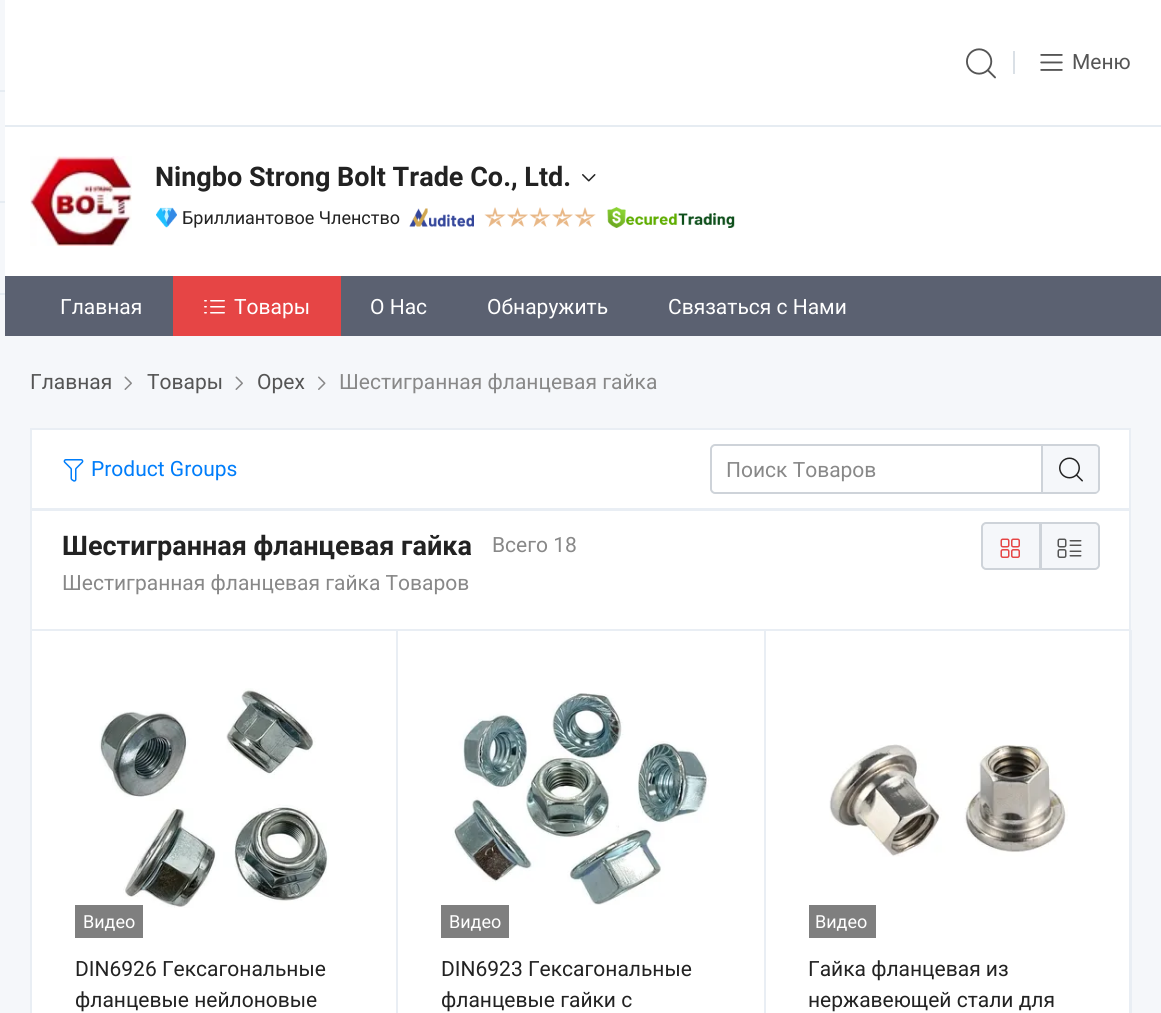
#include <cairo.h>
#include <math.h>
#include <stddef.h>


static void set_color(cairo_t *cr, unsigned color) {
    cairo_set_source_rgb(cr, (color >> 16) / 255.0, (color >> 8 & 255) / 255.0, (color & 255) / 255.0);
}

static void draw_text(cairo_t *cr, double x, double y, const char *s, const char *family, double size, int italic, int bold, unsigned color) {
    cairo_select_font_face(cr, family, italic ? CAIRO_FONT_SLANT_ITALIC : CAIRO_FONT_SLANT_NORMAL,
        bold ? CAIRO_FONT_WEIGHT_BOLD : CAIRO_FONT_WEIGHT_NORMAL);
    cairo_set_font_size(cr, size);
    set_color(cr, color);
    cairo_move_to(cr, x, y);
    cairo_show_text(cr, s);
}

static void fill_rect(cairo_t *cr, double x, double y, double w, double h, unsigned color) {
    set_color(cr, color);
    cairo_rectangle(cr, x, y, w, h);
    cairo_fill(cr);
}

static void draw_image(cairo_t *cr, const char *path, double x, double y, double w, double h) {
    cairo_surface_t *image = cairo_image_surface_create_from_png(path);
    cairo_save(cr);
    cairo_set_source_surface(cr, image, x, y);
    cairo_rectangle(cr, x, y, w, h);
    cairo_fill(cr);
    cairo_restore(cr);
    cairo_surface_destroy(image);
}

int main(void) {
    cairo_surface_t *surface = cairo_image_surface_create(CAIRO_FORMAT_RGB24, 1161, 1013);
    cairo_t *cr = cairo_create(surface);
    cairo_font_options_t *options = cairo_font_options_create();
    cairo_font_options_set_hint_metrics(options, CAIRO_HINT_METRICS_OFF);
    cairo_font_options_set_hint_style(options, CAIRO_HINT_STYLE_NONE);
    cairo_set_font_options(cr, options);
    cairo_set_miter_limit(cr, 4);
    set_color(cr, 0xFFFFFF);
    cairo_paint(cr);
    fill_rect(cr, 0, 125, 1161, 2, 0xE6ECF2);
    fill_rect(cr, 0, 0, 5, 1013, 0xF5F7FA);
    fill_rect(cr, 0, 90, 5, 2, 0xE6ECF2);
    fill_rect(cr, 0, 201, 5, 2, 0xE6ECF2);
    fill_rect(cr, 0, 293, 5, 2, 0xE6ECF2);
    draw_image(cr, "assets/img1.png", 966, 48, 30, 31);
    fill_rect(cr, 1013, 51, 2, 23, 0xDAE0E6);
    draw_image(cr, "assets/img2.png", 1040, 54, 23, 17);
    draw_text(cr, 1072, 69, "Меню", "Roboto", 21, 0, 0, 0x555555);
    draw_image(cr, "assets/img3.png", 30, 156, 102, 90);
    draw_text(cr, 155, 186, "Ningbo Strong Bolt Trade Co., Ltd.", "Roboto", 27, 0, 1, 0x222222);
    draw_image(cr, "assets/img4.png", 582, 174, 14, 8);
    draw_image(cr, "assets/img5.png", 156, 207, 21, 21);
    draw_text(cr, 182, 224, "Бриллиантовое Членство", "Roboto", 18, 0, 0, 0x222222);
    draw_image(cr, "assets/img6.png", 409, 208, 65, 19);
    draw_image(cr, "assets/img7.png", 484, 207, 22, 21);
    draw_image(cr, "assets/img8.png", 507, 207, 21, 20);
    draw_image(cr, "assets/img9.png", 529, 207, 22, 21);
    draw_image(cr, "assets/img10.png", 552, 207, 21, 20);
    draw_image(cr, "assets/img7.png", 574, 207, 22, 21);
    draw_image(cr, "assets/img11.png", 607, 207, 128, 21);
    fill_rect(cr, 5, 276, 1156, 60, 0x5B6171);
    draw_text(cr, 60, 314, "Главная", "Roboto", 21, 0, 0, 0xFFFFFF);
    fill_rect(cr, 173, 276, 168, 60, 0xE64545);
    draw_image(cr, "assets/img12.png", 204, 300, 21, 14);
    draw_text(cr, 234, 314, "Товары", "Roboto", 21, 0, 0, 0xFFFFFF);
    draw_text(cr, 370, 314, "О Нас", "Roboto", 21, 0, 0, 0xFFFFFF);
    draw_text(cr, 487, 314, "Обнаружить", "Roboto", 21, 0, 0, 0xFFFFFF);
    draw_text(cr, 668, 314, "Связаться с Нами", "Roboto", 21, 0, 0, 0xFFFFFF);
    fill_rect(cr, 5, 336, 1156, 677, 0xF5F7FA);
    draw_text(cr, 30, 389, "Главная", "Roboto", 21, 0, 0, 0x555555);
    draw_image(cr, "assets/img13.png", 124, 376, 8, 14);
    draw_text(cr, 147, 389, "Товары", "Roboto", 21, 0, 0, 0x555555);
    draw_image(cr, "assets/img13.png", 235, 376, 8, 14);
    draw_text(cr, 257, 389, "Орех", "Roboto", 21, 0, 0, 0x555555);
    draw_image(cr, "assets/img14.png", 318, 376, 8, 14);
    draw_text(cr, 339, 389, "Шестигранная фланцевая гайка", "Roboto", 21, 0, 0, 0x888888);
    set_color(cr, 0xFFFFFF);
    cairo_rectangle(cr, 31, 429, 1099, 80);
    cairo_fill_preserve(cr);
    set_color(cr, 0xE9EEF4);
    cairo_stroke(cr);
    draw_image(cr, "assets/img15.png", 63, 459, 21, 23);
    draw_text(cr, 91, 476, "Product Groups", "Roboto", 21, 0, 0, 0x007DFA);
    cairo_new_path(cr);
    cairo_move_to(cr, 715, 445);
    cairo_line_to(cr, 1042, 445);
    cairo_line_to(cr, 1042, 493);
    cairo_line_to(cr, 715, 493);
    cairo_curve_to(cr, 713, 493, 711, 491, 711, 489);
    cairo_line_to(cr, 711, 449);
    cairo_curve_to(cr, 711, 447, 713, 445, 715, 445);
    cairo_close_path(cr);
    set_color(cr, 0xCED3D9);
    cairo_stroke(cr);
    draw_text(cr, 726, 477, "Поиск Товаров", "Roboto", 21, 0, 0, 0x888888);
    set_color(cr, 0xF5F7FA);
    cairo_new_path(cr);
    cairo_move_to(cr, 1043, 444);
    cairo_line_to(cr, 1095, 444);
    cairo_curve_to(cr, 1098, 444, 1100, 446, 1100, 449);
    cairo_line_to(cr, 1100, 489);
    cairo_curve_to(cr, 1100, 492, 1098, 494, 1095, 494);
    cairo_line_to(cr, 1043, 494);
    cairo_close_path(cr);
    cairo_fill(cr);
    set_color(cr, 0xCED3D9);
    cairo_set_fill_rule(cr, CAIRO_FILL_RULE_EVEN_ODD);
    cairo_new_path(cr);
    cairo_move_to(cr, 1042, 444);
    cairo_line_to(cr, 1095, 444);
    cairo_curve_to(cr, 1097, 444, 1100, 446, 1100, 448);
    cairo_line_to(cr, 1100, 489);
    cairo_curve_to(cr, 1100, 491, 1097, 494, 1095, 494);
    cairo_line_to(cr, 1042, 494);
    cairo_close_path(cr);
    cairo_move_to(cr, 1042, 446);
    cairo_line_to(cr, 1095, 446);
    cairo_curve_to(cr, 1097, 446, 1098, 447, 1098, 448);
    cairo_line_to(cr, 1098, 489);
    cairo_curve_to(cr, 1098, 491, 1097, 492, 1095, 492);
    cairo_line_to(cr, 1042, 492);
    cairo_close_path(cr);
    cairo_fill(cr);
    draw_image(cr, "assets/img16.png", 1059, 457, 24, 25);
    set_color(cr, 0xFFFFFF);
    cairo_rectangle(cr, 31, 510, 1099, 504);
    cairo_fill_preserve(cr);
    set_color(cr, 0xE9EEF4);
    cairo_stroke(cr);
    draw_text(cr, 62, 555, "Шестигранная фланцевая гайка", "Roboto", 27, 0, 1, 0x222222);
    draw_text(cr, 492, 552, "Всего 18", "Roboto", 21, 0, 0, 0x888888);
    draw_text(cr, 62, 590, "Шестигранная фланцевая гайка Товаров", "Roboto", 21, 0, 0, 0x888888);
    set_color(cr, 0xF5F7FA);
    cairo_new_path(cr);
    cairo_move_to(cr, 986, 523);
    cairo_line_to(cr, 1040, 523);
    cairo_line_to(cr, 1040, 569);
    cairo_line_to(cr, 986, 569);
    cairo_curve_to(cr, 984, 569, 982, 567, 982, 565);
    cairo_line_to(cr, 982, 527);
    cairo_curve_to(cr, 982, 525, 984, 523, 986, 523);
    cairo_close_path(cr);
    cairo_fill_preserve(cr);
    set_color(cr, 0xCED3D9);
    cairo_stroke(cr);
    draw_image(cr, "assets/img17.png", 1000, 538, 20, 20);
    set_color(cr, 0xF5F7FA);
    cairo_new_path(cr);
    cairo_move_to(cr, 1041, 523);
    cairo_line_to(cr, 1095, 523);
    cairo_curve_to(cr, 1097, 523, 1099, 525, 1099, 527);
    cairo_line_to(cr, 1099, 565);
    cairo_curve_to(cr, 1099, 567, 1097, 569, 1095, 569);
    cairo_line_to(cr, 1041, 569);
    cairo_close_path(cr);
    cairo_fill_preserve(cr);
    set_color(cr, 0xCED3D9);
    cairo_stroke(cr);
    draw_image(cr, "assets/img18.png", 1057, 538, 25, 20);
    fill_rect(cr, 32, 629, 1099, 2, 0xE9EEF4);
    fill_rect(cr, 396, 630, 2, 383, 0xE9EEF4);
    draw_image(cr, "assets/img19.png", 99, 688, 230, 220);
    fill_rect(cr, 75, 905, 68, 33, 0x7F7F7F);
    draw_text(cr, 83, 928, "Видео", "Roboto", 18, 0, 0, 0xFFFFFF);
    draw_text(cr, 75, 976, "DIN6926 Гексагональные", "Roboto", 21, 0, 0, 0x222222);
    draw_text(cr, 75, 1007, "фланцевые нейлоновые", "Roboto", 21, 0, 0, 0x222222);
    fill_rect(cr, 764, 630, 2, 383, 0xE9EEF4);
    draw_image(cr, "assets/img20.png", 452, 693, 257, 212);
    fill_rect(cr, 441, 905, 68, 33, 0x7F7F7F);
    draw_text(cr, 449, 928, "Видео", "Roboto", 18, 0, 0, 0xFFFFFF);
    draw_text(cr, 441, 976, "DIN6923 Гексагональные", "Roboto", 21, 0, 0, 0x222222);
    draw_text(cr, 441, 1007, "фланцевые гайки с", "Roboto", 21, 0, 0, 0x222222);
    fill_rect(cr, 1131, 630, 1, 383, 0xE9EEF4);
    draw_image(cr, "assets/img21.png", 829, 744, 239, 113);
    fill_rect(cr, 809, 905, 67, 33, 0x7F7F7F);
    draw_text(cr, 815, 928, "Видео", "Roboto", 18, 0, 0, 0xFFFFFF);
    draw_text(cr, 808, 976, "Гайка фланцевая из", "Roboto", 21, 0, 0, 0x222222);
    draw_text(cr, 808, 1007, "нержавеющей стали для", "Roboto", 21, 0, 0, 0x222222);
    cairo_surface_write_to_png(surface, "output.png");
    cairo_font_options_destroy(options);
    cairo_destroy(cr);
    cairo_surface_destroy(surface);
    return 0;
}
